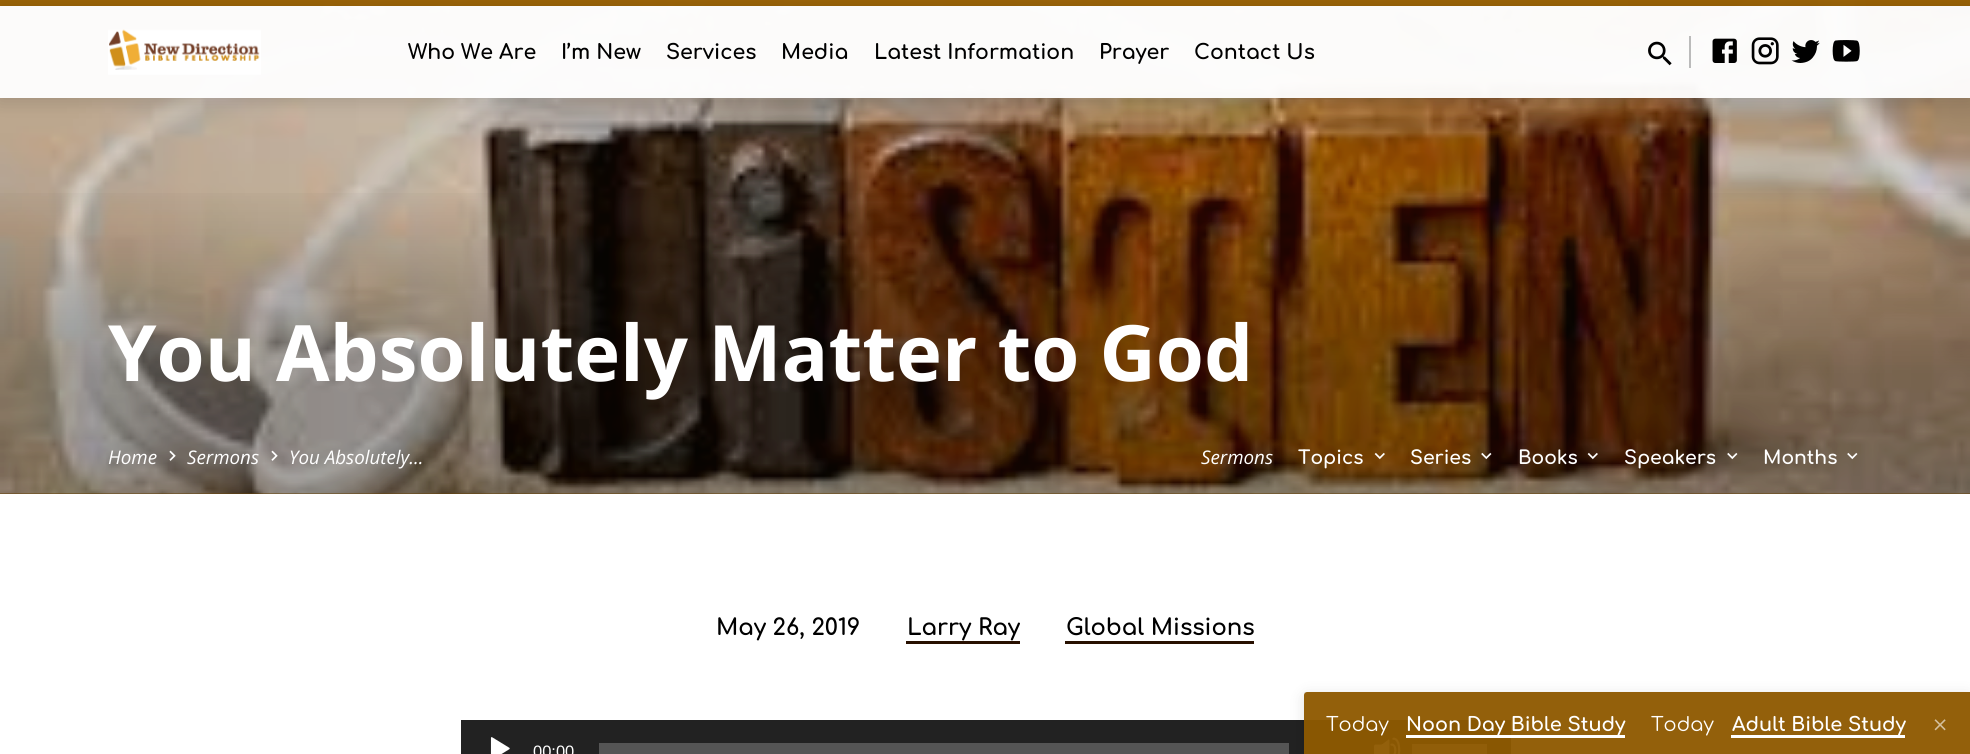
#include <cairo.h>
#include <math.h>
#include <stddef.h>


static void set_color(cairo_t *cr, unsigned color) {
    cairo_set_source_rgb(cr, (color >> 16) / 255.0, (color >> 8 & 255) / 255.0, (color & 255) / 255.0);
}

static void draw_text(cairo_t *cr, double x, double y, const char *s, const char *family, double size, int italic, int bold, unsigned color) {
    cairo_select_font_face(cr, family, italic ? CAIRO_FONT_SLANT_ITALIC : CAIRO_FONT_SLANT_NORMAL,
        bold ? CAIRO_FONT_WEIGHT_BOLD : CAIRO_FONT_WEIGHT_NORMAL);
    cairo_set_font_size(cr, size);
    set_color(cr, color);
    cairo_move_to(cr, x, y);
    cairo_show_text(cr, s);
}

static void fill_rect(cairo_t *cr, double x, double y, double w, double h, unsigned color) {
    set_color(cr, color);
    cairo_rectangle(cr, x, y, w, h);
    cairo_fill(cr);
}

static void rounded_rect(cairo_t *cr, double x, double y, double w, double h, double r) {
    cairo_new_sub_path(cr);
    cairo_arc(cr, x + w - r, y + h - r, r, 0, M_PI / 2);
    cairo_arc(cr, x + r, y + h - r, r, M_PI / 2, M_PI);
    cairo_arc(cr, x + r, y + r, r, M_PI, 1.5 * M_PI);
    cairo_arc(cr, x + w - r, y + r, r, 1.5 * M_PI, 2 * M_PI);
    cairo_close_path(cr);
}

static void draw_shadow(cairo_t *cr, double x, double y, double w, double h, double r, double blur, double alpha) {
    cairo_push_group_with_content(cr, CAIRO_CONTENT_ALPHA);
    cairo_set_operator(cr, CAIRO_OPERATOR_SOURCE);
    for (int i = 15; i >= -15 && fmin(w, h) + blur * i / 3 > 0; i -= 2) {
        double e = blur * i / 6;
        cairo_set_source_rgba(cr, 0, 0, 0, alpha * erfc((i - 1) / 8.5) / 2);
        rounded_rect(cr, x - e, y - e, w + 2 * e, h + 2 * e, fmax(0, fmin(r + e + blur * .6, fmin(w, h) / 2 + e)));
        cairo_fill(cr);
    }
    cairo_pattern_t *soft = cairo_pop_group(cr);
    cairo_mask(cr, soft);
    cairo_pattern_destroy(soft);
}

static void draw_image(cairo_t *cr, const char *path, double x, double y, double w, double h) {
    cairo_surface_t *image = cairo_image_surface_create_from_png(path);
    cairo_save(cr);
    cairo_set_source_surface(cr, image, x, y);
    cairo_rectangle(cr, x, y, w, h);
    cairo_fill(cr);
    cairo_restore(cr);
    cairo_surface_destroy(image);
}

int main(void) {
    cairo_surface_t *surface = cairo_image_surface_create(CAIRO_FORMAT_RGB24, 1970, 754);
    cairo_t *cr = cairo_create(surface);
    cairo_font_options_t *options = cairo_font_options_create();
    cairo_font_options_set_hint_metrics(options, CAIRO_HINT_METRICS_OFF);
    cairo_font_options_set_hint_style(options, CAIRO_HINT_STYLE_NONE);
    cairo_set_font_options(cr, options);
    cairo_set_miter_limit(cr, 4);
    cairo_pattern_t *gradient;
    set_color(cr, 0xFFFFFF);
    cairo_paint(cr);
    fill_rect(cr, 0, 0, 1970, 494, 0x8E5E0C);
    draw_image(cr, "assets/img7.png", 0, 0, 1970, 494);
    cairo_set_source_rgba(cr, 0.6, 0.376, 0, 0.95);
    cairo_rectangle(cr, 0, 0, 1970, 6);
    cairo_fill(cr);
    cairo_set_source_rgba(cr, 1, 1, 1, 0.95);
    cairo_rectangle(cr, 0, 6, 1970, 92);
    cairo_fill(cr);
    cairo_save(cr);
    cairo_set_fill_rule(cr, CAIRO_FILL_RULE_EVEN_ODD);
    cairo_new_path(cr);
    cairo_move_to(cr, 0, 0);
    cairo_line_to(cr, 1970, 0);
    cairo_line_to(cr, 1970, 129);
    cairo_line_to(cr, 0, 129);
    cairo_close_path(cr);
    cairo_move_to(cr, 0, 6);
    cairo_line_to(cr, 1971, 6);
    cairo_line_to(cr, 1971, 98);
    cairo_line_to(cr, 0, 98);
    cairo_close_path(cr);
    cairo_clip(cr);
    set_color(cr, 0x000000);
    draw_shadow(cr, 0, 9, 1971, 92, 0, 9, 0.14);
    cairo_restore(cr);
    draw_image(cr, "assets/img1.png", 108, 29, 153, 46);
    draw_text(cr, 408, 59, "Who We Are", "Comfortaa", 20.5, 0, 1, 0x000000);
    draw_text(cr, 561, 59, "I’m New", "Comfortaa", 20.5, 0, 1, 0x000000);
    draw_text(cr, 666, 59, "Services", "Comfortaa", 20.5, 0, 1, 0x000000);
    draw_text(cr, 781, 59, "Media", "Comfortaa", 20.5, 0, 1, 0x000000);
    draw_text(cr, 874, 59, "Latest Information", "Comfortaa", 20.5, 0, 1, 0x000000);
    draw_text(cr, 1099, 59, "Prayer", "Comfortaa", 20.5, 0, 1, 0x000000);
    draw_text(cr, 1194, 59, "Contact Us", "Comfortaa", 20.5, 0, 1, 0x000000);
    draw_image(cr, "assets/img2.png", 1648, 41, 24, 25);
    fill_rect(cr, 1689, 36, 2, 32, 0xBBBBBB);
    draw_image(cr, "assets/img3.png", 1712, 38, 25, 25);
    draw_image(cr, "assets/img4.png", 1751, 37, 28, 28);
    draw_image(cr, "assets/img5.png", 1791, 40, 29, 23);
    draw_image(cr, "assets/img6.png", 1832, 40, 28, 22);
    gradient = cairo_pattern_create_linear(986, 0, 986, 494);
    cairo_pattern_add_color_stop_rgba(gradient, 0, 0, 0, 0, 0);
    cairo_pattern_add_color_stop_rgba(gradient, 0.36, 0, 0, 0, 0);
    cairo_pattern_add_color_stop_rgba(gradient, 0.76, 0, 0, 0, 0.28);
    cairo_pattern_add_color_stop_rgba(gradient, 1, 0, 0, 0, 0.28);
    cairo_set_source(cr, gradient);
    cairo_pattern_destroy(gradient);
    cairo_rectangle(cr, 0, 193, 1970, 301);
    cairo_fill(cr);
    draw_text(cr, 108, 381, "You Absolutely Matter to God", "Open Sans", 77.75, 0, 1, 0xFFFFFF);
    draw_text(cr, 108, 464, "Home", "Open Sans", 18.75, 1, 0, 0xFFFFFF);
    draw_image(cr, "assets/img8.png", 169, 450, 7, 11);
    draw_text(cr, 187, 464, "Sermons", "Open Sans", 18.75, 1, 0, 0xFFFFFF);
    draw_image(cr, "assets/img9.png", 271, 450, 7, 11);
    draw_text(cr, 289, 464, "You Absolutely…", "Open Sans", 18.75, 1, 0, 0xFFFFFF);
    draw_text(cr, 1201, 464, "Sermons", "Open Sans", 18.75, 1, 0, 0xFFFFFF);
    draw_text(cr, 1298, 464, "Topics", "Comfortaa", 18.75, 0, 1, 0xFFFFFF);
    draw_image(cr, "assets/img10.png", 1374, 452, 11, 8);
    draw_text(cr, 1410, 464, "Series", "Comfortaa", 18.75, 0, 1, 0xFFFFFF);
    draw_image(cr, "assets/img11.png", 1481, 452, 11, 8);
    draw_text(cr, 1518, 464, "Books", "Comfortaa", 18.75, 0, 1, 0xFFFFFF);
    draw_image(cr, "assets/img12.png", 1587, 452, 11, 8);
    draw_text(cr, 1624, 464, "Speakers", "Comfortaa", 18.75, 0, 1, 0xFFFFFF);
    draw_image(cr, "assets/img13.png", 1727, 452, 11, 8);
    draw_text(cr, 1763, 464, "Months", "Comfortaa", 18.75, 0, 1, 0xFFFFFF);
    draw_image(cr, "assets/img14.png", 1847, 452, 11, 8);
    draw_text(cr, 716, 635, "May 26, 2019", "Comfortaa", 22.75, 0, 1, 0x000000);
    draw_text(cr, 907, 635, "Larry Ray", "Comfortaa", 22.75, 0, 1, 0x000000);
    fill_rect(cr, 906, 641, 114, 3, 0x281000);
    draw_text(cr, 1066, 635, "Global Missions", "Comfortaa", 22.75, 0, 1, 0x000000);
    fill_rect(cr, 1065, 641, 189, 3, 0x281000);
    fill_rect(cr, 461, 720, 1050, 34, 0x222222);
    draw_image(cr, "assets/img15.png", 490, 737, 20, 17);
    draw_text(cr, 533, 757, "00:00", "Liberation Sans", 16.5, 0, 0, 0xFFFFFF);
    fill_rect(cr, 599, 743, 690, 11, 0x555555);
    draw_image(cr, "assets/img16.png", 1374, 737, 27, 17);
    fill_rect(cr, 1412, 744, 75, 10, 0xD2D2D2);
    cairo_save(cr);
    cairo_set_fill_rule(cr, CAIRO_FILL_RULE_EVEN_ODD);
    cairo_new_path(cr);
    cairo_move_to(cr, 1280, 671);
    cairo_line_to(cr, 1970, 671);
    cairo_line_to(cr, 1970, 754);
    cairo_line_to(cr, 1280, 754);
    cairo_close_path(cr);
    cairo_move_to(cr, 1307, 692);
    cairo_line_to(cr, 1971, 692);
    cairo_line_to(cr, 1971, 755);
    cairo_line_to(cr, 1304, 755);
    cairo_line_to(cr, 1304, 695);
    cairo_curve_to(cr, 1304, 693.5, 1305.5, 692, 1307, 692);
    cairo_close_path(cr);
    cairo_clip(cr);
    set_color(cr, 0x000000);
    draw_shadow(cr, 1304, 695, 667, 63, 3, 7.5, 0.12);
    cairo_restore(cr);
    cairo_set_source_rgba(cr, 0.6, 0.376, 0, 0.95);
    cairo_new_path(cr);
    cairo_move_to(cr, 1307, 692);
    cairo_line_to(cr, 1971, 692);
    cairo_line_to(cr, 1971, 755);
    cairo_line_to(cr, 1304, 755);
    cairo_line_to(cr, 1304, 695);
    cairo_curve_to(cr, 1304, 693.5, 1305.5, 692, 1307, 692);
    cairo_close_path(cr);
    cairo_fill(cr);
    cairo_set_source_rgba(cr, 0, 0, 0, 0.07);
    cairo_rectangle(cr, 1304, 692, 666, 62);
    cairo_fill(cr);
    draw_text(cr, 1326, 731, "Today", "Comfortaa", 19.25, 0, 0, 0xFFFFFF);
    fill_rect(cr, 1406, 735, 219, 3, 0xFFFFFF);
    draw_text(cr, 1406, 731, "Noon Day Bible Study", "Comfortaa", 19.25, 0, 1, 0xFFFFFF);
    draw_text(cr, 1651, 731, "Today", "Comfortaa", 19.25, 0, 0, 0xFFFFFF);
    fill_rect(cr, 1731, 735, 174, 3, 0xFFFFFF);
    draw_text(cr, 1732, 731, "Adult Bible Study", "Comfortaa", 19.25, 0, 1, 0xFFFFFF);
    draw_image(cr, "assets/img17.png", 1934, 719, 12, 12);
    cairo_surface_write_to_png(surface, "output.png");
    cairo_font_options_destroy(options);
    cairo_destroy(cr);
    cairo_surface_destroy(surface);
    return 0;
}
